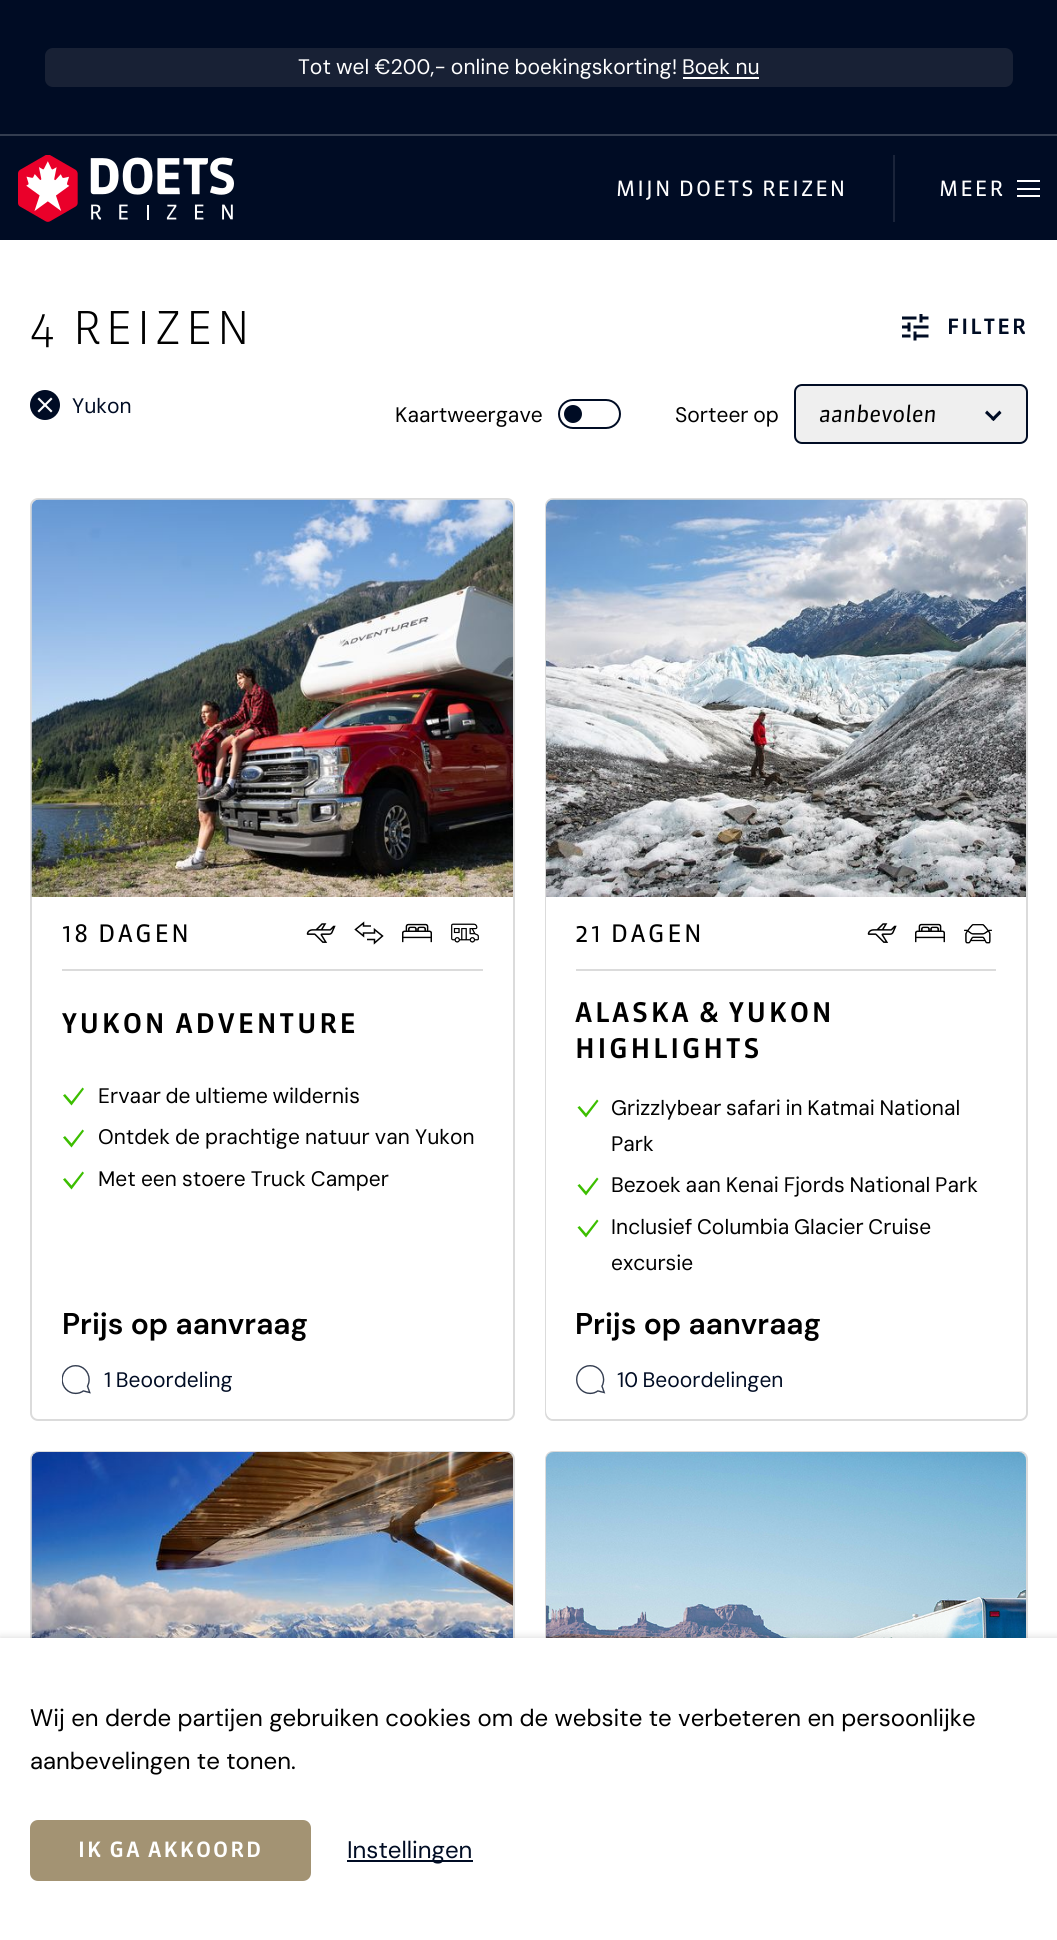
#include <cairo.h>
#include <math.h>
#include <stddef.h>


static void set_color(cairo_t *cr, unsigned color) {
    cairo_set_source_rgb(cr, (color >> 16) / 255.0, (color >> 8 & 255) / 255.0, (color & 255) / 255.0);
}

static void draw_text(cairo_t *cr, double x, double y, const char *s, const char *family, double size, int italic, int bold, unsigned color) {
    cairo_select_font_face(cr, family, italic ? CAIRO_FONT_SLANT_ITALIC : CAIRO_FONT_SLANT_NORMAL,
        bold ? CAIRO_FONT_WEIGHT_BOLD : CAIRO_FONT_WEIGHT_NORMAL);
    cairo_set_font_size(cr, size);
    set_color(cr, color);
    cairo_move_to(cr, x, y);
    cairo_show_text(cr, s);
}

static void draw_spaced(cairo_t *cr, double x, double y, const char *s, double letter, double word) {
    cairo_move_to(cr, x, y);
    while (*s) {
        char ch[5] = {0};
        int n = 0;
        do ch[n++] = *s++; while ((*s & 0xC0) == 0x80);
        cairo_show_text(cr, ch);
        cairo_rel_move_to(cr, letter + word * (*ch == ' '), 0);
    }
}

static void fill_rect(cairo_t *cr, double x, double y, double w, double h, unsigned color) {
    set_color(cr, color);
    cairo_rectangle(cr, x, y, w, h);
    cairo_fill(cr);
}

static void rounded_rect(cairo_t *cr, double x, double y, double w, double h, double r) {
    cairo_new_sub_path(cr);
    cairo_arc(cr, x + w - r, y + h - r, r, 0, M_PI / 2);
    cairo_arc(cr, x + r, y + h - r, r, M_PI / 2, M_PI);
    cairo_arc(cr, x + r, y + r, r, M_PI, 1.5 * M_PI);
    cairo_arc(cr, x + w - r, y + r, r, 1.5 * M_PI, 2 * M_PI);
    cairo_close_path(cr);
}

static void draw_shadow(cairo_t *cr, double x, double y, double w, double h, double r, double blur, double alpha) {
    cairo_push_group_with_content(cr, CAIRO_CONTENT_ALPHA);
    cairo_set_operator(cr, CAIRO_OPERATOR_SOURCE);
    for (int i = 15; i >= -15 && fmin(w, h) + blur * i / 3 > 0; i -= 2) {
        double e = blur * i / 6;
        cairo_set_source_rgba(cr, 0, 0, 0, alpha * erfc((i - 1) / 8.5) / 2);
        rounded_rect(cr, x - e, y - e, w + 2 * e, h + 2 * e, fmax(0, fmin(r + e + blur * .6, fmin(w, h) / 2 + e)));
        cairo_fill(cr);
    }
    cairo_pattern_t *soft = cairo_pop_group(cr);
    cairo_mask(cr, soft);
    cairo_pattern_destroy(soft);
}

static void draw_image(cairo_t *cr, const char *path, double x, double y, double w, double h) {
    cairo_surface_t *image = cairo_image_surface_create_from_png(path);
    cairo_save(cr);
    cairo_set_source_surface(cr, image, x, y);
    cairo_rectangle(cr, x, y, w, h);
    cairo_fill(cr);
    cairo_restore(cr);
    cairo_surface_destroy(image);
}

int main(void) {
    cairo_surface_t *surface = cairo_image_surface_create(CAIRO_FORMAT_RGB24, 1057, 1940);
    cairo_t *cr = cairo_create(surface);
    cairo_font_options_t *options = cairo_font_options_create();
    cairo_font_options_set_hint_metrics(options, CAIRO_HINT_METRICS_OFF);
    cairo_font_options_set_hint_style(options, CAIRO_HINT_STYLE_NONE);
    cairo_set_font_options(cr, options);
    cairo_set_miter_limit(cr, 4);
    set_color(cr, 0xFFFFFF);
    cairo_paint(cr);
    fill_rect(cr, 0, 0, 1057, 134, 0x000C24);
    fill_rect(cr, 0, 134, 1057, 2, 0x333D50);
    set_color(cr, 0x182135);
    rounded_rect(cr, 45, 48, 968, 39, 8);
    cairo_fill(cr);
    cairo_select_font_face(cr, "DM Sans", CAIRO_FONT_SLANT_NORMAL, CAIRO_FONT_WEIGHT_NORMAL);
    cairo_set_font_size(cr, 21);
    set_color(cr, 0xFFFFFF);
    draw_spaced(cr, 298, 74, "Tot wel €200,- online boekingskorting!", 0, -0.5);
    draw_text(cr, 682, 74, "Boek nu", "DM Sans", 21, 0, 0, 0xFFFFFF);
    fill_rect(cr, 683, 77, 76, 2, 0xFFFFFF);
    fill_rect(cr, 0, 136, 1057, 104, 0x000C24);
    draw_image(cr, "assets/img1.png", 18, 155, 216, 67);
    cairo_select_font_face(cr, "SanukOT", CAIRO_FONT_SLANT_NORMAL, CAIRO_FONT_WEIGHT_NORMAL);
    set_color(cr, 0xFFFFFF);
    draw_spaced(cr, 616, 196, "MIJN DOETS REIZEN", 2.1, 0);
    fill_rect(cr, 893, 155, 2, 67, 0x1A243A);
    set_color(cr, 0xFFFFFF);
    draw_spaced(cr, 939, 196, "MEER", 2.1, 0);
    fill_rect(cr, 1017, 180, 23, 2, 0xFFFFFF);
    fill_rect(cr, 1017, 188, 23, 2, 0xFFFFFF);
    fill_rect(cr, 1017, 195, 23, 2, 0xFFFFFF);
    cairo_select_font_face(cr, "SanukOT Light", CAIRO_FONT_SLANT_NORMAL, CAIRO_FONT_WEIGHT_NORMAL);
    cairo_set_font_size(cr, 45);
    set_color(cr, 0x000000);
    draw_spaced(cr, 30, 344, "4 REIZEN", 4.5, 0);
    draw_image(cr, "assets/img2.png", 902, 314, 27, 27);
    cairo_select_font_face(cr, "SanukOT Medium", CAIRO_FONT_SLANT_NORMAL, CAIRO_FONT_WEIGHT_NORMAL);
    cairo_set_font_size(cr, 21);
    set_color(cr, 0x000C24);
    draw_spaced(cr, 947, 334, "FILTER", 2.1, 0);
    cairo_new_path(cr);
    cairo_arc(cr, 45, 405, 15, 0, 2 * M_PI);
    cairo_fill(cr);
    draw_image(cr, "assets/img3.png", 37, 397, 16, 16);
    draw_text(cr, 72, 413, "Yukon", "DM Sans", 21, 0, 0, 0x000C24);
    draw_text(cr, 395, 422, "Kaartweergave", "DM Sans", 21, 0, 0, 0x000000);
    rounded_rect(cr, 559, 400, 61, 28, 14);
    set_color(cr, 0x000C24);
    cairo_stroke(cr);
    cairo_arc(cr, 573, 414, 9, 0, 2 * M_PI);
    cairo_fill(cr);
    set_color(cr, 0x000000);
    draw_spaced(cr, 675, 422, "Sorteer op", 0, -1);
    set_color(cr, 0xEFEFEF);
    rounded_rect(cr, 795, 385, 232, 58, 7);
    cairo_fill_preserve(cr);
    set_color(cr, 0x000C24);
    cairo_stroke(cr);
    draw_text(cr, 819, 422, "aanbevolen", "SanukOT", 22.5, 1, 0, 0x000000);
    set_color(cr, 0x000C24);
    cairo_new_path(cr);
    cairo_move_to(cr, 991, 419);
    cairo_line_to(cr, 999.5, 410.5);
    cairo_line_to(cr, 1001.5, 413);
    cairo_line_to(cr, 993.5, 421);
    cairo_close_path(cr);
    cairo_fill(cr);
    cairo_new_path(cr);
    cairo_move_to(cr, 985, 413);
    cairo_line_to(cr, 987, 410.5);
    cairo_line_to(cr, 995.5, 419);
    cairo_line_to(cr, 993.5, 421);
    cairo_close_path(cr);
    cairo_fill(cr);
    rounded_rect(cr, 31, 499, 483, 921, 7);
    set_color(cr, 0xDBDBDB);
    cairo_stroke(cr);
    draw_image(cr, "assets/img4.png", 31, 499, 482, 398);
    fill_rect(cr, 62, 969, 421, 2, 0xDBDBDB);
    cairo_select_font_face(cr, "SanukOT", CAIRO_FONT_SLANT_NORMAL, CAIRO_FONT_WEIGHT_NORMAL);
    cairo_set_font_size(cr, 24);
    set_color(cr, 0x000000);
    draw_spaced(cr, 62, 942, "18 DAGEN", 2.5, 0);
    draw_image(cr, "assets/img5.png", 306, 923, 30, 20);
    cairo_new_path(cr);
    cairo_move_to(cr, 371, 926);
    cairo_line_to(cr, 363.5, 926);
    cairo_line_to(cr, 363.5, 923);
    cairo_line_to(cr, 355.5, 929.5);
    cairo_line_to(cr, 363.5, 936);
    cairo_line_to(cr, 363.5, 933);
    cairo_line_to(cr, 374.5, 933);
    cairo_line_to(cr, 374.5, 929.5);
    cairo_line_to(cr, 382.5, 936);
    cairo_line_to(cr, 374.5, 943);
    cairo_line_to(cr, 374.5, 939.5);
    cairo_line_to(cr, 367, 939.5);
    cairo_set_line_width(cr, 1.5);
    cairo_stroke(cr);
    draw_image(cr, "assets/img6.png", 402, 923, 30, 20);
    draw_image(cr, "assets/img7.png", 451, 923, 28, 20);
    cairo_select_font_face(cr, "SanukOT Medium", CAIRO_FONT_SLANT_NORMAL, CAIRO_FONT_WEIGHT_NORMAL);
    cairo_set_font_size(cr, 27);
    draw_spaced(cr, 62, 1033, "YUKON ADVENTURE", 2.75, 0);
    set_color(cr, 0x3CBE00);
    cairo_new_path(cr);
    cairo_move_to(cr, 84, 1089);
    cairo_line_to(cr, 71.5, 1105.5);
    cairo_line_to(cr, 63, 1095.5);
    cairo_line_to(cr, 65, 1094);
    cairo_line_to(cr, 71.5, 1101.5);
    cairo_line_to(cr, 82.5, 1087.5);
    cairo_close_path(cr);
    cairo_move_to(cr, 84, 1131);
    cairo_line_to(cr, 71.5, 1147.5);
    cairo_line_to(cr, 63, 1137.5);
    cairo_line_to(cr, 65, 1136);
    cairo_line_to(cr, 71.5, 1143.5);
    cairo_line_to(cr, 82.5, 1129.5);
    cairo_close_path(cr);
    cairo_fill(cr);
    cairo_select_font_face(cr, "DM Sans", CAIRO_FONT_SLANT_NORMAL, CAIRO_FONT_WEIGHT_NORMAL);
    cairo_set_font_size(cr, 21);
    set_color(cr, 0x000000);
    draw_spaced(cr, 98, 1103, "Ervaar de ultieme wildernis", 0, -1);
    draw_spaced(cr, 98, 1144, "Ontdek de prachtige natuur van Yukon", 0, -0.5);
    set_color(cr, 0x3CBE00);
    cairo_new_path(cr);
    cairo_move_to(cr, 84, 1173);
    cairo_line_to(cr, 71.5, 1189.5);
    cairo_line_to(cr, 63, 1179.5);
    cairo_line_to(cr, 65, 1178);
    cairo_line_to(cr, 71.5, 1185.5);
    cairo_line_to(cr, 82.5, 1171.5);
    cairo_close_path(cr);
    cairo_fill(cr);
    set_color(cr, 0x000000);
    draw_spaced(cr, 98, 1186, "Met een stoere Truck Camper", 0, -0.5);
    draw_text(cr, 62, 1334, "Prijs op aanvraag", "DM Sans SemiBold", 30, 0, 0, 0x000000);
    draw_image(cr, "assets/img8.png", 62, 1365, 29, 30);
    cairo_select_font_face(cr, "DM Sans", CAIRO_FONT_SLANT_NORMAL, CAIRO_FONT_WEIGHT_NORMAL);
    cairo_set_font_size(cr, 21);
    set_color(cr, 0x000C24);
    draw_spaced(cr, 104, 1387, "1 Beoordeling", 0, -1);
    rounded_rect(cr, 546, 499, 481, 921, 7);
    set_color(cr, 0xDBDBDB);
    cairo_set_line_width(cr, 2);
    cairo_stroke(cr);
    draw_image(cr, "assets/img9.png", 546, 499, 480, 398);
    set_color(cr, 0xFFFFFF);
    cairo_new_path(cr);
    cairo_move_to(cr, 546, 897);
    cairo_line_to(cr, 1026, 897);
    cairo_line_to(cr, 1026, 1411);
    cairo_curve_to(cr, 1026, 1415.5, 1022.5, 1419, 1018, 1419);
    cairo_line_to(cr, 554, 1419);
    cairo_curve_to(cr, 549.5, 1419, 546, 1415.5, 546, 1411);
    cairo_close_path(cr);
    cairo_fill(cr);
    fill_rect(cr, 576, 969, 420, 2, 0xDBDBDB);
    cairo_select_font_face(cr, "SanukOT", CAIRO_FONT_SLANT_NORMAL, CAIRO_FONT_WEIGHT_NORMAL);
    cairo_set_font_size(cr, 24);
    set_color(cr, 0x000000);
    draw_spaced(cr, 575, 942, "21 DAGEN", 2.5, 0);
    draw_image(cr, "assets/img5.png", 867, 923, 30, 20);
    draw_image(cr, "assets/img6.png", 915, 923, 30, 20);
    draw_image(cr, "assets/img10.png", 964, 924, 28, 20);
    cairo_select_font_face(cr, "SanukOT Medium", CAIRO_FONT_SLANT_NORMAL, CAIRO_FONT_WEIGHT_NORMAL);
    cairo_set_font_size(cr, 27);
    draw_spaced(cr, 575, 1022, "ALASKA & YUKON", 2.75, 0);
    draw_spaced(cr, 575, 1058, "HIGHLIGHTS", 2.75, 0);
    set_color(cr, 0x3CBE00);
    cairo_new_path(cr);
    cairo_move_to(cr, 598.5, 1101);
    cairo_line_to(cr, 586, 1117.5);
    cairo_line_to(cr, 577.5, 1107.5);
    cairo_line_to(cr, 579.5, 1106);
    cairo_line_to(cr, 586, 1113.5);
    cairo_line_to(cr, 597, 1099.5);
    cairo_close_path(cr);
    cairo_fill(cr);
    cairo_select_font_face(cr, "DM Sans", CAIRO_FONT_SLANT_NORMAL, CAIRO_FONT_WEIGHT_NORMAL);
    cairo_set_font_size(cr, 21);
    set_color(cr, 0x000000);
    draw_spaced(cr, 611, 1115, "Grizzlybear safari in Katmai National", 0, -1);
    draw_text(cr, 611, 1151, "Park", "DM Sans", 21, 0, 0, 0x000000);
    set_color(cr, 0x3CBE00);
    cairo_new_path(cr);
    cairo_move_to(cr, 598.5, 1179);
    cairo_line_to(cr, 586, 1195.5);
    cairo_line_to(cr, 577.5, 1185.5);
    cairo_line_to(cr, 579.5, 1184);
    cairo_line_to(cr, 586, 1191.5);
    cairo_line_to(cr, 597, 1177.5);
    cairo_close_path(cr);
    cairo_move_to(cr, 598.5, 1221);
    cairo_line_to(cr, 586, 1237.5);
    cairo_line_to(cr, 577.5, 1227.5);
    cairo_line_to(cr, 579.5, 1226);
    cairo_line_to(cr, 586, 1233.5);
    cairo_line_to(cr, 597, 1219.5);
    cairo_close_path(cr);
    cairo_fill(cr);
    set_color(cr, 0x000000);
    draw_spaced(cr, 611, 1192, "Bezoek aan Kenai Fjords National Park", 0, -0.75);
    draw_spaced(cr, 611, 1234, "Inclusief Columbia Glacier Cruise", 0, -1);
    draw_text(cr, 611, 1270, "excursie", "DM Sans", 21, 0, 0, 0x000000);
    draw_text(cr, 575, 1334, "Prijs op aanvraag", "DM Sans SemiBold", 30, 0, 0, 0x000000);
    draw_image(cr, "assets/img11.png", 576, 1365, 30, 30);
    cairo_select_font_face(cr, "DM Sans", CAIRO_FONT_SLANT_NORMAL, CAIRO_FONT_WEIGHT_NORMAL);
    cairo_set_font_size(cr, 21);
    set_color(cr, 0x000C24);
    draw_spaced(cr, 617, 1387, "10 Beoordelingen", 0, -1);
    rounded_rect(cr, 31, 1452, 483, 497, 7);
    set_color(cr, 0xDBDBDB);
    cairo_stroke(cr);
    draw_image(cr, "assets/img12.png", 31, 1452, 482, 186);
    rounded_rect(cr, 546, 1452, 481, 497, 7);
    cairo_stroke(cr);
    draw_image(cr, "assets/img13.png", 546, 1452, 480, 186);
    set_color(cr, 0x000000);
    draw_shadow(cr, 0, 1638, 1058, 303, 0, 4.5, 0.16);
    fill_rect(cr, 0, 1638, 1057, 302, 0xFFFFFF);
    draw_text(cr, 30, 1726, "Wij en derde partijen gebruiken cookies om de website te verbeteren en persoonlijke", "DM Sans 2", 24, 0, 0, 0x000000);
    draw_text(cr, 30, 1769, "aanbevelingen te tonen.", "DM Sans 2", 24, 0, 0, 0x000000);
    set_color(cr, 0xA39373);
    rounded_rect(cr, 30, 1820, 281, 61, 8);
    cairo_fill(cr);
    cairo_select_font_face(cr, "SanukOT Medium", CAIRO_FONT_SLANT_NORMAL, CAIRO_FONT_WEIGHT_NORMAL);
    cairo_set_font_size(cr, 21);
    set_color(cr, 0xFFFFFF);
    draw_spaced(cr, 78, 1857, "IK GA AKKOORD", 2.1, 0);
    fill_rect(cr, 347, 1860, 126, 2, 0x000C24);
    draw_text(cr, 347, 1858, "Instellingen", "DM Sans 2", 24, 0, 0, 0x000C24);
    cairo_surface_write_to_png(surface, "output.png");
    cairo_font_options_destroy(options);
    cairo_destroy(cr);
    cairo_surface_destroy(surface);
    return 0;
}
